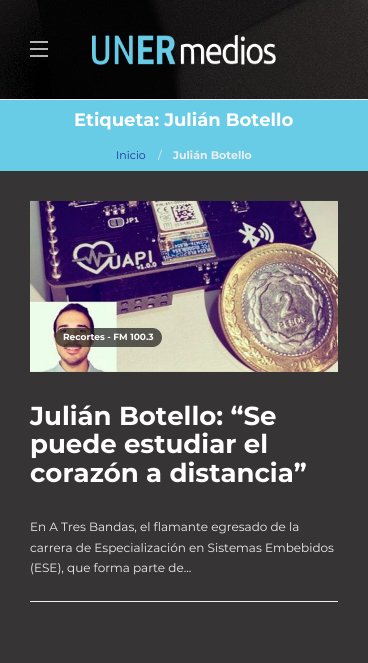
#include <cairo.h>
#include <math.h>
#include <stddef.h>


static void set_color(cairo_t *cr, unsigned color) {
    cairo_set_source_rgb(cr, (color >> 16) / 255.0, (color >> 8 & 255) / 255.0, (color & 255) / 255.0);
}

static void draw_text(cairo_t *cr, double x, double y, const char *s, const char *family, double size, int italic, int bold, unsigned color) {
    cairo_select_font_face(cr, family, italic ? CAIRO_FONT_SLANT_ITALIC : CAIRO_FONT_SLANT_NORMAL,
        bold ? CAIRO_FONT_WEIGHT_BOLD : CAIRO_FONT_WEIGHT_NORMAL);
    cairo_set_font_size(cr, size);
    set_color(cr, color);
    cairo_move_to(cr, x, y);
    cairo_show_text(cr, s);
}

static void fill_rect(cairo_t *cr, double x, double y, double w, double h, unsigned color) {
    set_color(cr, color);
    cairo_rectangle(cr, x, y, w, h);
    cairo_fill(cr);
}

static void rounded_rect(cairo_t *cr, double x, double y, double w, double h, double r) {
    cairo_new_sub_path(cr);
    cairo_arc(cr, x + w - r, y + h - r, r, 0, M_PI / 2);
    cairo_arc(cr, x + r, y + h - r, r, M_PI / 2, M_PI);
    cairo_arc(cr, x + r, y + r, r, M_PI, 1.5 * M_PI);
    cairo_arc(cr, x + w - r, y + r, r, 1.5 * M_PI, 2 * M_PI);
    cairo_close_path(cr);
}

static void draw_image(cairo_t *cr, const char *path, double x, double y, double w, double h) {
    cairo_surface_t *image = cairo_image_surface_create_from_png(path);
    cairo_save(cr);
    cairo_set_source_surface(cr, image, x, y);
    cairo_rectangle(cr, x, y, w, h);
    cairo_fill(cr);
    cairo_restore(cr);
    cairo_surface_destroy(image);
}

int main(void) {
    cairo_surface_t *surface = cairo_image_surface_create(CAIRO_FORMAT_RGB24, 368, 663);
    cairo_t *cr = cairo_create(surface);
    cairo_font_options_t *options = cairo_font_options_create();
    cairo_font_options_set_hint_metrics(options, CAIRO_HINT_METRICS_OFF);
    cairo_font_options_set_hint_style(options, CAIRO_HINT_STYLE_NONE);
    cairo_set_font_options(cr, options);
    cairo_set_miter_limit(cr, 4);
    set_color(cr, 0x373435);
    cairo_paint(cr);
    draw_image(cr, "assets/img1.png", 0, 0, 368, 99);
    fill_rect(cr, 0, 99, 368, 1, 0xEDEDED);
    fill_rect(cr, 30, 41, 18, 2, 0xB5B5B5);
    fill_rect(cr, 30, 48, 18, 2, 0xB5B5B5);
    fill_rect(cr, 30, 55, 18, 2, 0xB5B5B5);
    draw_image(cr, "assets/img2.png", 92, 35, 184, 30);
    fill_rect(cr, 0, 100, 368, 71, 0x69CCE6);
    draw_text(cr, 74, 126, "Etiqueta: Julián Botello", "Montserrat", 18, 0, 1, 0xFFFFFF);
    draw_text(cr, 116, 159, "Inicio", "Montserrat Thin", 11, 0, 0, 0x232F9D);
    draw_text(cr, 158, 159, "/", "Montserrat Thin", 11, 0, 0, 0xEDEDED);
    draw_text(cr, 173, 159, "Julián Botello", "Montserrat", 11, 0, 1, 0xEDEDED);
    fill_rect(cr, 30, 601, 308, 1, 0xF0F0F0);
    draw_image(cr, "assets/img3.png", 30, 200, 308, 172);
    cairo_set_source_rgba(cr, 0.11, 0.11, 0.11, 0.7);
    rounded_rect(cr, 55, 328, 107, 19, 9.5);
    cairo_fill(cr);
    draw_text(cr, 63, 340, "Recortes - FM 100.3", "Montserrat", 9, 0, 1, 0xFFFFFF);
    draw_text(cr, 30, 425, "Julián Botello: “Se", "Montserrat", 26, 0, 1, 0xFFFFFF);
    draw_text(cr, 30, 453, "puede estudiar el", "Montserrat", 26, 0, 1, 0xFFFFFF);
    draw_text(cr, 30, 482, "corazón a distancia”", "Montserrat", 26, 0, 1, 0xFFFFFF);
    draw_text(cr, 30, 531, "En A Tres Bandas, el flamante egresado de la", "Montserrat Thin", 12, 0, 0, 0xEDEDED);
    draw_text(cr, 30, 552, "carrera de Especialización en Sistemas Embebidos", "Montserrat Thin", 12, 0, 0, 0xEDEDED);
    draw_text(cr, 30, 572, "(ESE), que forma parte de...", "Montserrat Thin", 12, 0, 0, 0xEDEDED);
    cairo_surface_write_to_png(surface, "output.png");
    cairo_font_options_destroy(options);
    cairo_destroy(cr);
    cairo_surface_destroy(surface);
    return 0;
}
